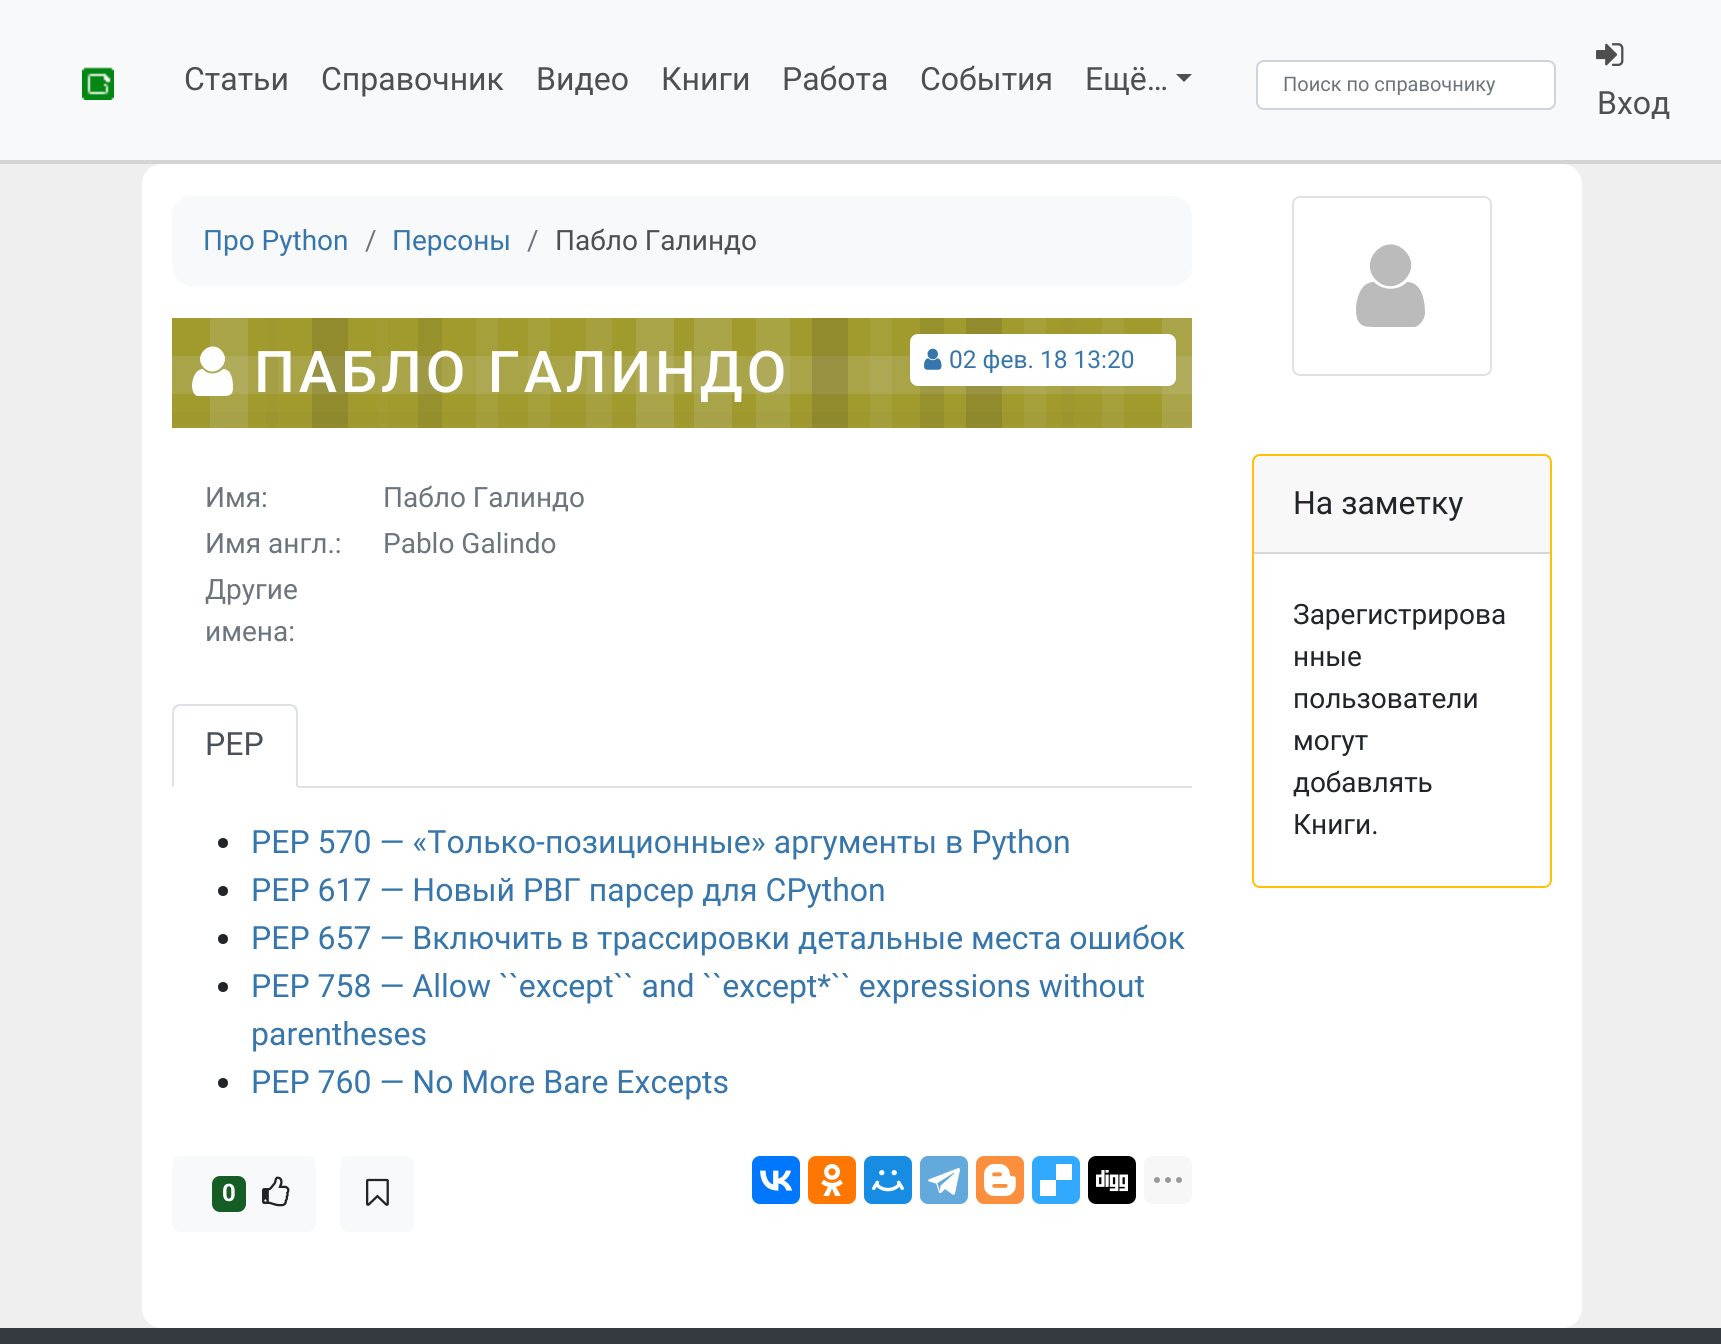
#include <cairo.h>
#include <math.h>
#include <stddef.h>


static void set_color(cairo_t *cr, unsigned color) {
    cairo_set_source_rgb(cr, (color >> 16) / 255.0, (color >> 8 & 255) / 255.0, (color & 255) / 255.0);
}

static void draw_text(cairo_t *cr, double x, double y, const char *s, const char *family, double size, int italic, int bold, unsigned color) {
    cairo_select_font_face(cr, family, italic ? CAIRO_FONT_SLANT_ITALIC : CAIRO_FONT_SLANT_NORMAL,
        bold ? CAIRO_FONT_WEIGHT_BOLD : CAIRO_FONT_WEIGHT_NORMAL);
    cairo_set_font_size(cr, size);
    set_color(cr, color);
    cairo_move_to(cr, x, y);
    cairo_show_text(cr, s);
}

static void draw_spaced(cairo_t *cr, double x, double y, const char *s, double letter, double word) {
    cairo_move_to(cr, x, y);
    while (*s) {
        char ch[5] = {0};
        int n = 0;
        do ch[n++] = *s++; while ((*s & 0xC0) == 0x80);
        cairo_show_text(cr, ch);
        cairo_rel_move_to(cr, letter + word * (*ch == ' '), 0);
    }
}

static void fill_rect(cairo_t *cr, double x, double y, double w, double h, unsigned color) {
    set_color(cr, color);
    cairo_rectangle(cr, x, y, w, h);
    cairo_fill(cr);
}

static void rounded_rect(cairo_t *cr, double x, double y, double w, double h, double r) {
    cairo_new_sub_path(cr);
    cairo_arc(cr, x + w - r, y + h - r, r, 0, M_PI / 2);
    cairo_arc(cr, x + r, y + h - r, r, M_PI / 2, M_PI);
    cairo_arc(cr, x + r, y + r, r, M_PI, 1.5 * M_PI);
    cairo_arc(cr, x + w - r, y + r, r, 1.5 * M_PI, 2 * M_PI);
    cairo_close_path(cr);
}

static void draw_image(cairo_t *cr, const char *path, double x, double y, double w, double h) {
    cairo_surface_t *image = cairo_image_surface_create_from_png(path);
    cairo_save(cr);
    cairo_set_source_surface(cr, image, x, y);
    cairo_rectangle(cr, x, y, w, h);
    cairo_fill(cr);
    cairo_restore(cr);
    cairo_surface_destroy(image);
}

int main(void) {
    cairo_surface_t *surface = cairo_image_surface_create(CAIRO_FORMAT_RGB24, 1721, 1344);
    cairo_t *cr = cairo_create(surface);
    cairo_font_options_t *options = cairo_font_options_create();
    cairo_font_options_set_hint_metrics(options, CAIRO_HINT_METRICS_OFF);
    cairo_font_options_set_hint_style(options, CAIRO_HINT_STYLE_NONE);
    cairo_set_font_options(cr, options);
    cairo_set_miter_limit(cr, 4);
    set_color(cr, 0xEFEFEF);
    cairo_paint(cr);
    fill_rect(cr, 0, 0, 1721, 160, 0xF8F9FA);
    fill_rect(cr, 0, 160, 1721, 4, 0xD4D4D4);
    draw_image(cr, "assets/img1.png", 82, 67, 32, 33);
    draw_text(cr, 184, 90, "Статьи", "Roboto", 32, 0, 0, 0x4F4F4F);
    draw_text(cr, 321, 90, "Справочник", "Roboto", 32, 0, 0, 0x4F4F4F);
    draw_text(cr, 536, 90, "Видео", "Roboto", 32, 0, 0, 0x4F4F4F);
    draw_text(cr, 661, 90, "Книги", "Roboto", 32, 0, 0, 0x4F4F4F);
    draw_text(cr, 782, 90, "Работа", "Roboto", 32, 0, 0, 0x4F4F4F);
    draw_text(cr, 920, 90, "События", "Roboto", 32, 0, 0, 0x4F4F4F);
    draw_text(cr, 1085, 90, "Ещё…", "Roboto", 32, 0, 0, 0x4F4F4F);
    cairo_new_path(cr);
    cairo_move_to(cr, 1176, 74);
    cairo_line_to(cr, 1192, 74);
    cairo_line_to(cr, 1184, 82);
    cairo_close_path(cr);
    cairo_fill(cr);
    set_color(cr, 0xFFFFFF);
    rounded_rect(cr, 1257, 61, 298, 48, 7);
    cairo_fill_preserve(cr);
    set_color(cr, 0xCED4DA);
    cairo_stroke(cr);
    draw_text(cr, 1283, 91, "Поиск по справочнику", "Roboto", 20, 0, 0, 0x6C757D);
    draw_image(cr, "assets/img2.png", 1596, 43, 28, 23);
    draw_text(cr, 1597, 114, "Вход", "Roboto", 32, 0, 0, 0x4F4F4F);
    set_color(cr, 0xFFFFFF);
    rounded_rect(cr, 142, 164, 1440, 1164, 20);
    cairo_fill(cr);
    set_color(cr, 0xF8F9FA);
    rounded_rect(cr, 172, 196, 1020, 90, 20);
    cairo_fill(cr);
    draw_text(cr, 203, 250, "Про Python", "Roboto", 28, 0, 0, 0x3776AB);
    draw_text(cr, 365, 250, "/", "Roboto", 28, 0, 0, 0x6C757D);
    draw_text(cr, 392, 250, "Персоны", "Roboto", 28, 0, 0, 0x3776AB);
    draw_text(cr, 527, 250, "/", "Roboto", 28, 0, 0, 0x6C757D);
    draw_text(cr, 555, 250, "Пабло Галиндо", "Roboto", 28, 0, 0, 0x4F4F4F);
    draw_image(cr, "assets/img3.png", 172, 318, 1020, 110);
    set_color(cr, 0xFFFFFF);
    cairo_new_path(cr);
    cairo_move_to(cr, 233, 388);
    cairo_curve_to(cr, 233, 396, 228, 396, 222, 396);
    cairo_line_to(cr, 197, 396);
    cairo_curve_to(cr, 188, 392, 192, 369, 203, 369);
    cairo_curve_to(cr, 208, 375, 217, 375, 223, 369);
    cairo_curve_to(cr, 232, 369, 233, 381, 233, 388);
    cairo_close_path(cr);
    cairo_move_to(cr, 221, 350);
    cairo_curve_to(cr, 233, 362, 215, 379, 204, 368);
    cairo_curve_to(cr, 192, 356, 210, 339, 221, 350);
    cairo_close_path(cr);
    cairo_fill(cr);
    cairo_select_font_face(cr, "Roboto Medium", CAIRO_FONT_SLANT_NORMAL, CAIRO_FONT_WEIGHT_NORMAL);
    cairo_set_font_size(cr, 57.5);
    draw_spaced(cr, 254, 392, "ПАБЛО ГАЛИНДО", 4, 0);
    rounded_rect(cr, 910, 334, 266, 52, 8);
    cairo_fill(cr);
    draw_image(cr, "assets/img4.png", 924, 348, 18, 22);
    draw_text(cr, 949, 368, "02 фев. 18 13:20", "Roboto", 24.5, 0, 0, 0x3776AB);
    draw_text(cr, 205, 507, "Имя:", "Roboto", 28, 0, 0, 0x6C757D);
    draw_text(cr, 383, 507, "Пабло Галиндо", "Roboto", 28, 0, 0, 0x6C757D);
    draw_text(cr, 205, 553, "Имя англ.:", "Roboto", 28, 0, 0, 0x6C757D);
    draw_text(cr, 383, 553, "Pablo Galindo", "Roboto", 28, 0, 0, 0x6C757D);
    draw_text(cr, 205, 599, "Другие", "Roboto", 28, 0, 0, 0x6C757D);
    draw_text(cr, 205, 641, "имена:", "Roboto", 28, 0, 0, 0x6C757D);
    fill_rect(cr, 298, 786, 894, 2, 0xDEE2E6);
    cairo_new_path(cr);
    cairo_move_to(cr, 180, 704);
    cairo_curve_to(cr, 178, 704, 176, 705, 174, 706);
    cairo_line_to(cr, 176, 708);
    cairo_line_to(cr, 179, 706);
    cairo_line_to(cr, 291, 706);
    cairo_line_to(cr, 294, 708);
    cairo_line_to(cr, 296, 706);
    cairo_curve_to(cr, 294, 705, 292, 704, 290, 704);
    cairo_close_path(cr);
    cairo_fill(cr);
    cairo_new_path(cr);
    cairo_move_to(cr, 298, 788);
    cairo_line_to(cr, 298, 712);
    cairo_curve_to(cr, 298, 710, 297, 708, 296, 706);
    cairo_line_to(cr, 294, 708);
    cairo_line_to(cr, 296, 711);
    cairo_line_to(cr, 296, 786);
    cairo_close_path(cr);
    cairo_fill(cr);
    set_color(cr, 0xFFFFFF);
    cairo_new_path(cr);
    cairo_move_to(cr, 298, 788);
    cairo_line_to(cr, 296, 786);
    cairo_line_to(cr, 174, 786);
    cairo_line_to(cr, 172, 788);
    cairo_close_path(cr);
    cairo_fill(cr);
    set_color(cr, 0xDEE2E6);
    cairo_new_path(cr);
    cairo_move_to(cr, 172, 788);
    cairo_line_to(cr, 174, 786);
    cairo_line_to(cr, 174, 711);
    cairo_line_to(cr, 176, 708);
    cairo_line_to(cr, 174, 706);
    cairo_curve_to(cr, 173, 708, 172, 710, 172, 712);
    cairo_close_path(cr);
    cairo_fill(cr);
    draw_text(cr, 205, 755, "PEP", "Roboto", 32, 0, 0, 0x495057);
    set_color(cr, 0x212529);
    cairo_new_path(cr);
    cairo_arc(cr, 223, 843, 5, 0, 2 * M_PI);
    cairo_fill(cr);
    draw_text(cr, 251, 853, "PEP 570 — «Только-позиционные» аргументы в Python", "Roboto", 32, 0, 0, 0x3776AB);
    set_color(cr, 0x212529);
    cairo_new_path(cr);
    cairo_arc(cr, 223, 891, 5, 0, 2 * M_PI);
    cairo_fill(cr);
    draw_text(cr, 251, 901, "PEP 617 — Новый РВГ парсер для CPython", "Roboto", 32, 0, 0, 0x3776AB);
    set_color(cr, 0x212529);
    cairo_new_path(cr);
    cairo_arc(cr, 223, 939, 5, 0, 2 * M_PI);
    cairo_fill(cr);
    draw_text(cr, 251, 949, "PEP 657 — Включить в трассировки детальные места ошибок", "Roboto", 32, 0, 0, 0x3776AB);
    set_color(cr, 0x212529);
    cairo_new_path(cr);
    cairo_arc(cr, 223, 987, 5, 0, 2 * M_PI);
    cairo_fill(cr);
    draw_text(cr, 251, 997, "PEP 758 — Allow ``except`` and ``except*`` expressions without", "Roboto", 32, 0, 0, 0x3776AB);
    draw_text(cr, 251, 1045, "parentheses", "Roboto", 32, 0, 0, 0x3776AB);
    set_color(cr, 0x212529);
    cairo_new_path(cr);
    cairo_arc(cr, 223, 1083, 5, 0, 2 * M_PI);
    cairo_fill(cr);
    draw_text(cr, 251, 1093, "PEP 760 — No More Bare Excepts", "Roboto", 32, 0, 0, 0x3776AB);
    set_color(cr, 0xF8F9FA);
    rounded_rect(cr, 172, 1156, 144, 76, 8);
    cairo_fill(cr);
    set_color(cr, 0x155D25);
    rounded_rect(cr, 212, 1176, 34, 36, 8);
    cairo_fill(cr);
    draw_text(cr, 222, 1201, "0", "Roboto", 24, 0, 1, 0xFFFFFF);
    draw_image(cr, "assets/img5.png", 262, 1176, 28, 31);
    set_color(cr, 0xF8F9FA);
    rounded_rect(cr, 340, 1156, 74, 76, 8);
    cairo_fill(cr);
    draw_image(cr, "assets/img6.png", 366, 1178, 23, 28);
    set_color(cr, 0x0077FF);
    rounded_rect(cr, 752, 1156, 48, 48, 8);
    cairo_fill(cr);
    draw_image(cr, "assets/img7.png", 760, 1170, 33, 21);
    set_color(cr, 0xFF7700);
    rounded_rect(cr, 808, 1156, 48, 48, 8);
    cairo_fill(cr);
    draw_image(cr, "assets/img8.png", 821, 1164, 22, 32);
    set_color(cr, 0x168DE2);
    rounded_rect(cr, 864, 1156, 48, 48, 8);
    cairo_fill(cr);
    draw_image(cr, "assets/img9.png", 872, 1170, 32, 22);
    set_color(cr, 0x64A9DC);
    rounded_rect(cr, 920, 1156, 48, 48, 8);
    cairo_fill(cr);
    draw_image(cr, "assets/img10.png", 928, 1168, 32, 27);
    set_color(cr, 0xFB8F3D);
    rounded_rect(cr, 976, 1156, 48, 48, 8);
    cairo_fill(cr);
    draw_image(cr, "assets/img11.png", 984, 1164, 32, 32);
    set_color(cr, 0x31A9FF);
    rounded_rect(cr, 1032, 1156, 48, 48, 8);
    cairo_fill(cr);
    set_color(cr, 0xFFFFFF);
    cairo_set_fill_rule(cr, CAIRO_FILL_RULE_EVEN_ODD);
    cairo_new_path(cr);
    cairo_move_to(cr, 1040, 1180);
    cairo_line_to(cr, 1056, 1180);
    cairo_line_to(cr, 1056, 1196);
    cairo_line_to(cr, 1040, 1196);
    cairo_close_path(cr);
    cairo_move_to(cr, 1056, 1164);
    cairo_line_to(cr, 1072, 1164);
    cairo_line_to(cr, 1072, 1180);
    cairo_line_to(cr, 1056, 1180);
    cairo_close_path(cr);
    cairo_fill(cr);
    set_color(cr, 0x000000);
    rounded_rect(cr, 1088, 1156, 48, 48, 8);
    cairo_fill(cr);
    draw_image(cr, "assets/img12.png", 1096, 1170, 32, 22);
    set_color(cr, 0xF7F7F7);
    rounded_rect(cr, 1144, 1156, 48, 48, 8);
    cairo_fill(cr);
    draw_image(cr, "assets/img13.png", 1154, 1177, 28, 6);
    rounded_rect(cr, 1293, 197, 198, 178, 7);
    set_color(cr, 0xDEE2E6);
    cairo_stroke(cr);
    set_color(cr, 0xBBBBBB);
    cairo_set_fill_rule(cr, CAIRO_FILL_RULE_WINDING);
    cairo_new_path(cr);
    cairo_move_to(cr, 1425, 313);
    cairo_curve_to(cr, 1425, 318, 1421, 325, 1415, 327);
    cairo_line_to(cr, 1375, 327);
    cairo_curve_to(cr, 1372, 327, 1367, 327, 1364, 326);
    cairo_curve_to(cr, 1361, 325, 1358, 322, 1357, 318);
    cairo_curve_to(cr, 1356, 315, 1356, 311, 1356, 307);
    cairo_curve_to(cr, 1357, 297, 1361, 282, 1374, 282);
    cairo_curve_to(cr, 1383, 291, 1398, 291, 1407, 282);
    cairo_curve_to(cr, 1422, 282, 1425, 301, 1425, 313);
    cairo_close_path(cr);
    cairo_move_to(cr, 1405, 251);
    cairo_curve_to(cr, 1424, 270, 1395, 299, 1376, 280);
    cairo_curve_to(cr, 1357, 261, 1386, 231, 1405, 251);
    cairo_close_path(cr);
    cairo_fill(cr);
    rounded_rect(cr, 1253, 455, 298, 432, 7);
    set_color(cr, 0xFFC107);
    cairo_stroke(cr);
    cairo_set_source_rgba(cr, 0, 0, 0, 0.03);
    cairo_rectangle(cr, 1254, 456, 296, 96);
    cairo_fill(cr);
    fill_rect(cr, 1254, 552, 296, 2, 0xD8D8D8);
    draw_text(cr, 1293, 514, "На заметку", "Roboto", 32, 0, 0, 0x212529);
    draw_text(cr, 1293, 624, "Зарегистрирова", "Roboto", 28, 0, 0, 0x212529);
    draw_text(cr, 1293, 666, "нные", "Roboto", 28, 0, 0, 0x212529);
    draw_text(cr, 1293, 708, "пользователи", "Roboto", 28, 0, 0, 0x212529);
    draw_text(cr, 1293, 750, "могут", "Roboto", 28, 0, 0, 0x212529);
    draw_text(cr, 1293, 792, "добавлять", "Roboto", 28, 0, 0, 0x212529);
    draw_text(cr, 1293, 834, "Книги.", "Roboto", 28, 0, 0, 0x212529);
    fill_rect(cr, 0, 1328, 1721, 16, 0x343A40);
    cairo_surface_write_to_png(surface, "output.png");
    cairo_font_options_destroy(options);
    cairo_destroy(cr);
    cairo_surface_destroy(surface);
    return 0;
}
